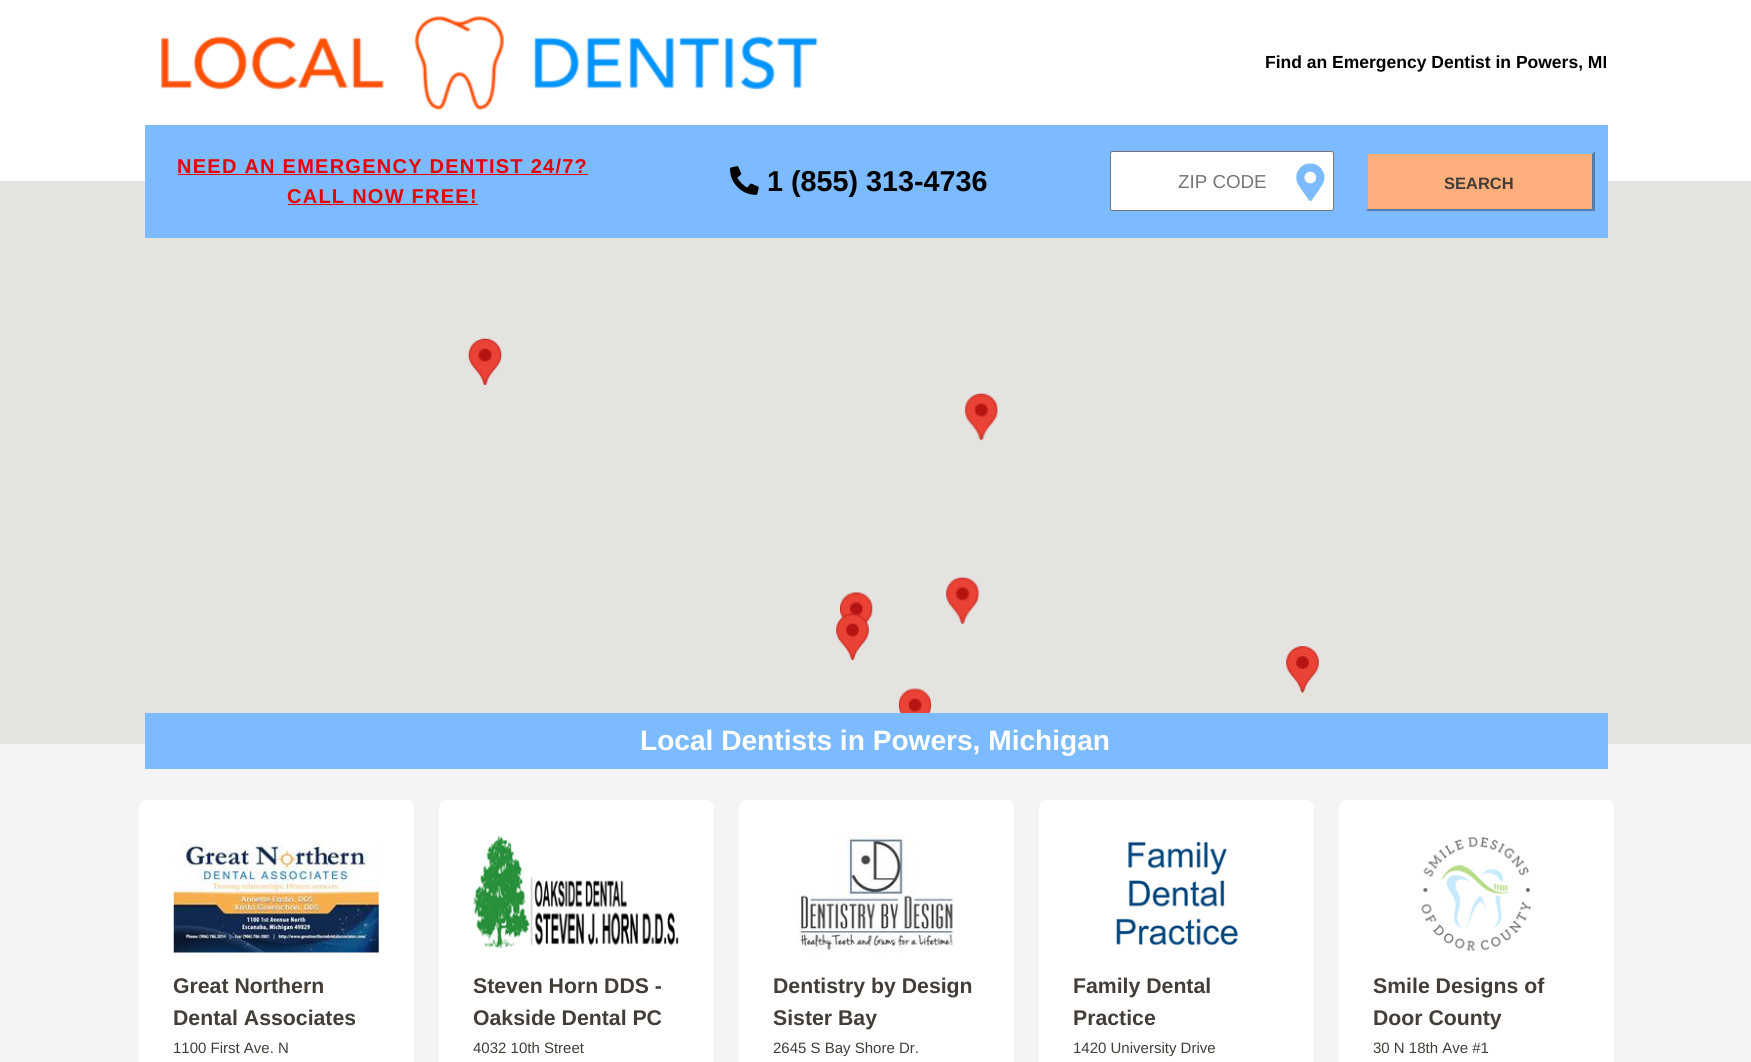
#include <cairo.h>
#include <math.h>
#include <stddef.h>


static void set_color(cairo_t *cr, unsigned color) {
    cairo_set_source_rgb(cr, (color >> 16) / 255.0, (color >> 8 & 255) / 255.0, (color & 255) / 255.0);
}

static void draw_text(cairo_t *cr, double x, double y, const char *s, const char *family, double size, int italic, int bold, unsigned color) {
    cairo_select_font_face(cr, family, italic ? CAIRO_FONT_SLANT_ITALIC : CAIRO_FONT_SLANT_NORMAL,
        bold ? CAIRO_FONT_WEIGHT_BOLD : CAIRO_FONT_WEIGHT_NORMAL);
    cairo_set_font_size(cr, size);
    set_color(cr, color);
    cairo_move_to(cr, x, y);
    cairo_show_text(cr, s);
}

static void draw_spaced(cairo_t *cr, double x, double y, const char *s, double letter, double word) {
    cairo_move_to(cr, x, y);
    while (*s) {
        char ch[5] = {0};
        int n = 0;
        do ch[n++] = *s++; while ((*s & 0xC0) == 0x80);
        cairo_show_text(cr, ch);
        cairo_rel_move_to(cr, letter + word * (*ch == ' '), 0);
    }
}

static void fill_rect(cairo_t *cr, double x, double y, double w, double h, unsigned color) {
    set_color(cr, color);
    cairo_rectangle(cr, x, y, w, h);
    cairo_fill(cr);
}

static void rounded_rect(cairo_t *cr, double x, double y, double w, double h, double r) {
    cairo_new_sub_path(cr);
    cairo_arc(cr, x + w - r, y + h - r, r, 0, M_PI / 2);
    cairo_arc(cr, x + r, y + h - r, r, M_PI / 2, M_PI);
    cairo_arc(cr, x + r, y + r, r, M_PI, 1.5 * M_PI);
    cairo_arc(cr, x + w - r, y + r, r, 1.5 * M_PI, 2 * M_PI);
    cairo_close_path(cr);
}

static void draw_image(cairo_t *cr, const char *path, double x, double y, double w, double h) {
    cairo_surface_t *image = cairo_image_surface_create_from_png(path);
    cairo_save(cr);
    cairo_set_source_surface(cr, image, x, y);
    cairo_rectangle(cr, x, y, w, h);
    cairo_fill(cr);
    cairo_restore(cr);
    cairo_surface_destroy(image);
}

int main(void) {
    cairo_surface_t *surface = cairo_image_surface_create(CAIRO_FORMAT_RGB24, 1751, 1062);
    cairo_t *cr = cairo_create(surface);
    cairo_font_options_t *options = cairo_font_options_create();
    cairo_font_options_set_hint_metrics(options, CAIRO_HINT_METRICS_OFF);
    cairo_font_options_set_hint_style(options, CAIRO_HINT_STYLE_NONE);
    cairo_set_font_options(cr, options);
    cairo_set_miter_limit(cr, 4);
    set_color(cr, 0xFFFFFF);
    cairo_paint(cr);
    draw_image(cr, "assets/img1.png", 160, 16, 658, 95);
    draw_text(cr, 1265, 68, "Find an Emergency Dentist in Powers, MI", "Liberation Sans", 17.5, 0, 1, 0x000000);
    fill_rect(cr, 0, 181, 1751, 563, 0xE5E3DF);
    fill_rect(cr, 145, 125, 1463, 113, 0x7CBBFF);
    cairo_set_font_size(cr, 20);
    set_color(cr, 0xE60000);
    draw_spaced(cr, 177, 173, "NEED AN EMERGENCY DENTIST 24/7?", 1.25, 0);
    fill_rect(cr, 178, 174, 410, 1, 0xE60000);
    draw_spaced(cr, 287, 203, "CALL NOW FREE!", 1.25, 0);
    fill_rect(cr, 288, 204, 190, 1, 0xE60000);
    draw_image(cr, "assets/img2.png", 730, 166, 29, 29);
    draw_text(cr, 767, 191, "1 (855) 313-4736", "Liberation Sans", 28.75, 0, 1, 0x000000);
    set_color(cr, 0xFFFFFF);
    rounded_rect(cr, 1110.5, 151.5, 223, 59, 2);
    cairo_fill_preserve(cr);
    set_color(cr, 0x767676);
    cairo_set_line_width(cr, 1);
    cairo_stroke(cr);
    draw_text(cr, 1178, 188, "ZIP CODE", "Liberation Sans", 18.75, 0, 0, 0x757575);
    draw_image(cr, "assets/img3.png", 1296, 163, 29, 38);
    fill_rect(cr, 1365, 151, 230, 60, 0xFFAE7C);
    set_color(cr, 0x7CBBFF);
    cairo_new_path(cr);
    cairo_move_to(cr, 1365, 151);
    cairo_line_to(cr, 1595, 151);
    cairo_line_to(cr, 1592, 154);
    cairo_line_to(cr, 1368, 154);
    cairo_close_path(cr);
    cairo_fill(cr);
    set_color(cr, 0x537DAA);
    cairo_new_path(cr);
    cairo_move_to(cr, 1595, 151);
    cairo_line_to(cr, 1595, 211);
    cairo_line_to(cr, 1592, 209);
    cairo_line_to(cr, 1592, 154);
    cairo_close_path(cr);
    cairo_fill(cr);
    cairo_new_path(cr);
    cairo_move_to(cr, 1595, 211);
    cairo_line_to(cr, 1365, 211);
    cairo_line_to(cr, 1368, 209);
    cairo_line_to(cr, 1592, 209);
    cairo_close_path(cr);
    cairo_fill(cr);
    set_color(cr, 0x7CBBFF);
    cairo_new_path(cr);
    cairo_move_to(cr, 1365, 211);
    cairo_line_to(cr, 1365, 151);
    cairo_line_to(cr, 1368, 154);
    cairo_line_to(cr, 1368, 209);
    cairo_close_path(cr);
    cairo_fill(cr);
    draw_text(cr, 1444, 189, "SEARCH", "Liberation Sans", 16.5, 0, 1, 0x433D38);
    fill_rect(cr, 0, 744, 1751, 318, 0xF4F4F4);
    draw_image(cr, "assets/img4.png", 468, 338, 34, 47);
    draw_image(cr, "assets/img5.png", 964, 393, 34, 48);
    draw_image(cr, "assets/img6.png", 840, 592, 33, 32);
    draw_image(cr, "assets/img7.png", 946, 577, 34, 47);
    draw_image(cr, "assets/img8.png", 836, 613, 33, 47);
    draw_image(cr, "assets/img9.png", 1286, 646, 33, 47);
    draw_image(cr, "assets/img10.png", 898, 688, 34, 25);
    fill_rect(cr, 145, 713, 1463, 56, 0x7CBBFF);
    draw_text(cr, 640, 750, "Local Dentists in Powers, Michigan", "Liberation Sans", 28.1, 0, 1, 0xFFFFFF);
    rounded_rect(cr, 139, 800, 275, 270, 8);
    cairo_fill(cr);
    draw_image(cr, "assets/img11.png", 173, 841, 206, 112);
    draw_text(cr, 173, 993, "Great Northern", "Liberation Sans", 21.25, 0, 1, 0x433D38);
    draw_text(cr, 173, 1025, "Dental Associates", "Liberation Sans", 21.25, 0, 1, 0x433D38);
    draw_text(cr, 173, 1053, "1100 First Ave. N", "Liberation Sans", 15, 0, 0, 0x433D38);
    set_color(cr, 0xFFFFFF);
    rounded_rect(cr, 439, 800, 275, 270, 8);
    cairo_fill(cr);
    draw_image(cr, "assets/img12.png", 473, 835, 206, 114);
    draw_text(cr, 473, 993, "Steven Horn DDS -", "Liberation Sans", 21.25, 0, 1, 0x433D38);
    draw_text(cr, 473, 1025, "Oakside Dental PC", "Liberation Sans", 21.25, 0, 1, 0x433D38);
    draw_text(cr, 473, 1053, "4032 10th Street", "Liberation Sans", 15, 0, 0, 0x433D38);
    set_color(cr, 0xFFFFFF);
    rounded_rect(cr, 739, 800, 275, 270, 8);
    cairo_fill(cr);
    draw_image(cr, "assets/img13.png", 797, 835, 157, 118);
    draw_text(cr, 773, 993, "Dentistry by Design", "Liberation Sans", 21.25, 0, 1, 0x433D38);
    draw_text(cr, 773, 1025, "Sister Bay", "Liberation Sans", 21.25, 0, 1, 0x433D38);
    draw_text(cr, 773, 1053, "2645 S Bay Shore Dr.", "Liberation Sans", 15, 0, 0, 0x433D38);
    set_color(cr, 0xFFFFFF);
    rounded_rect(cr, 1039, 800, 275, 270, 8);
    cairo_fill(cr);
    draw_image(cr, "assets/img14.png", 1115, 841, 123, 105);
    draw_text(cr, 1073, 993, "Family Dental", "Liberation Sans", 21.25, 0, 1, 0x433D38);
    draw_text(cr, 1073, 1025, "Practice", "Liberation Sans", 21.25, 0, 1, 0x433D38);
    draw_text(cr, 1073, 1053, "1420 University Drive", "Liberation Sans", 15, 0, 0, 0x433D38);
    set_color(cr, 0xFFFFFF);
    rounded_rect(cr, 1339, 800, 275, 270, 8);
    cairo_fill(cr);
    draw_image(cr, "assets/img15.png", 1421, 837, 110, 114);
    draw_text(cr, 1373, 993, "Smile Designs of", "Liberation Sans", 21.25, 0, 1, 0x433D38);
    draw_text(cr, 1373, 1025, "Door County", "Liberation Sans", 21.25, 0, 1, 0x433D38);
    draw_text(cr, 1373, 1053, "30 N 18th Ave #1", "Liberation Sans", 15, 0, 0, 0x433D38);
    cairo_surface_write_to_png(surface, "output.png");
    cairo_font_options_destroy(options);
    cairo_destroy(cr);
    cairo_surface_destroy(surface);
    return 0;
}
